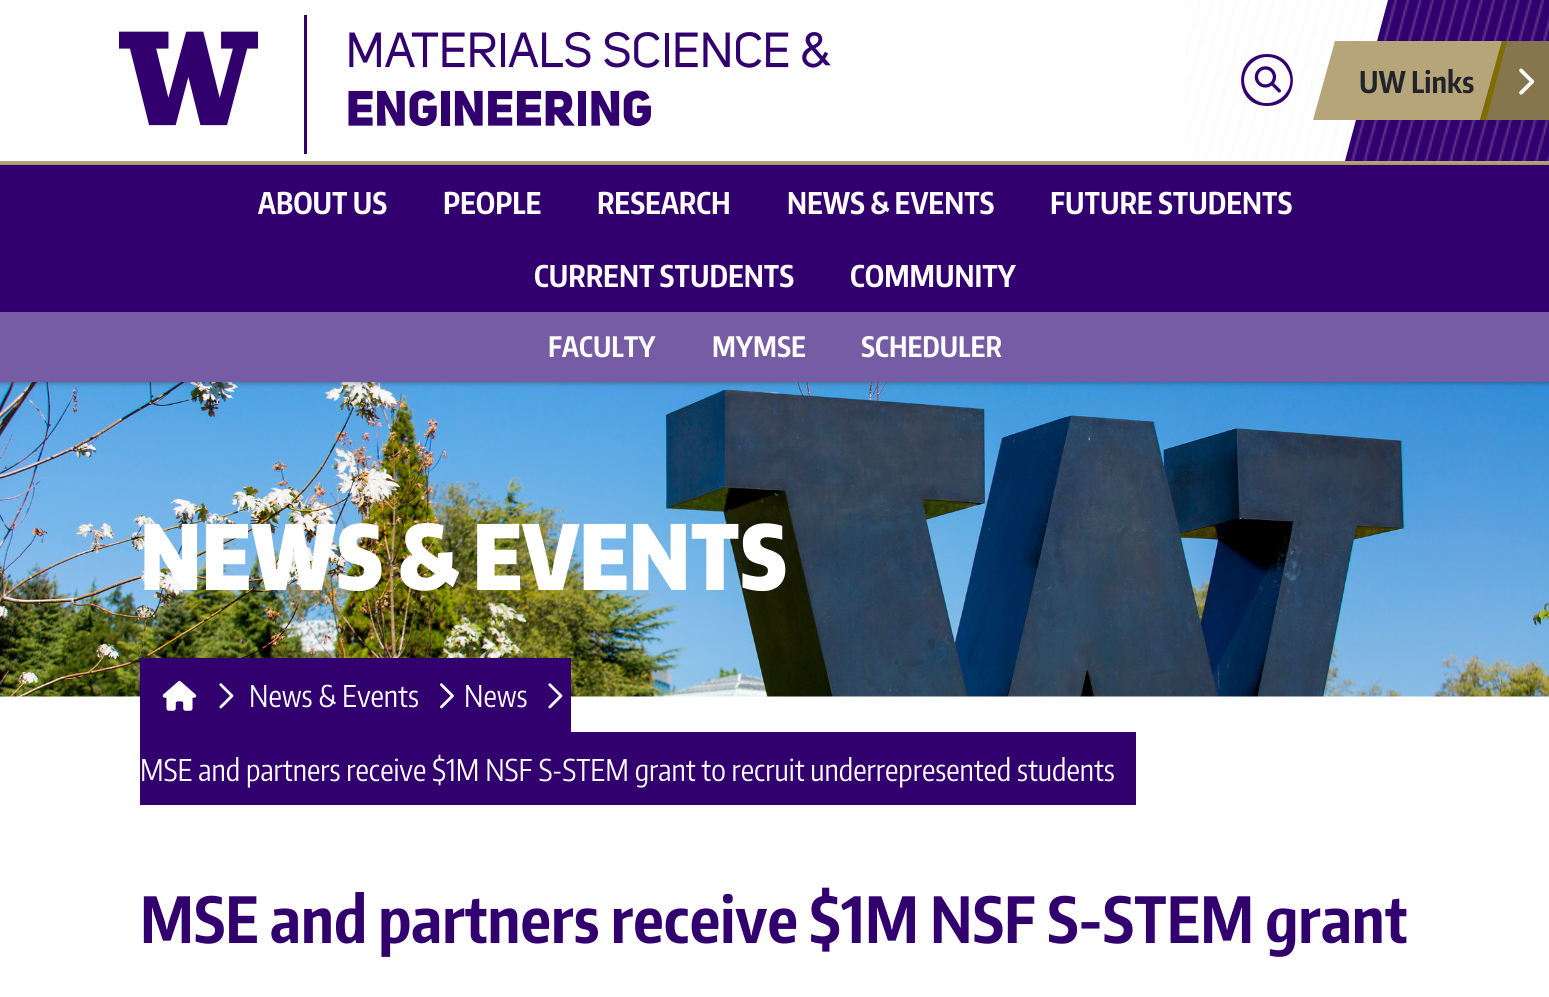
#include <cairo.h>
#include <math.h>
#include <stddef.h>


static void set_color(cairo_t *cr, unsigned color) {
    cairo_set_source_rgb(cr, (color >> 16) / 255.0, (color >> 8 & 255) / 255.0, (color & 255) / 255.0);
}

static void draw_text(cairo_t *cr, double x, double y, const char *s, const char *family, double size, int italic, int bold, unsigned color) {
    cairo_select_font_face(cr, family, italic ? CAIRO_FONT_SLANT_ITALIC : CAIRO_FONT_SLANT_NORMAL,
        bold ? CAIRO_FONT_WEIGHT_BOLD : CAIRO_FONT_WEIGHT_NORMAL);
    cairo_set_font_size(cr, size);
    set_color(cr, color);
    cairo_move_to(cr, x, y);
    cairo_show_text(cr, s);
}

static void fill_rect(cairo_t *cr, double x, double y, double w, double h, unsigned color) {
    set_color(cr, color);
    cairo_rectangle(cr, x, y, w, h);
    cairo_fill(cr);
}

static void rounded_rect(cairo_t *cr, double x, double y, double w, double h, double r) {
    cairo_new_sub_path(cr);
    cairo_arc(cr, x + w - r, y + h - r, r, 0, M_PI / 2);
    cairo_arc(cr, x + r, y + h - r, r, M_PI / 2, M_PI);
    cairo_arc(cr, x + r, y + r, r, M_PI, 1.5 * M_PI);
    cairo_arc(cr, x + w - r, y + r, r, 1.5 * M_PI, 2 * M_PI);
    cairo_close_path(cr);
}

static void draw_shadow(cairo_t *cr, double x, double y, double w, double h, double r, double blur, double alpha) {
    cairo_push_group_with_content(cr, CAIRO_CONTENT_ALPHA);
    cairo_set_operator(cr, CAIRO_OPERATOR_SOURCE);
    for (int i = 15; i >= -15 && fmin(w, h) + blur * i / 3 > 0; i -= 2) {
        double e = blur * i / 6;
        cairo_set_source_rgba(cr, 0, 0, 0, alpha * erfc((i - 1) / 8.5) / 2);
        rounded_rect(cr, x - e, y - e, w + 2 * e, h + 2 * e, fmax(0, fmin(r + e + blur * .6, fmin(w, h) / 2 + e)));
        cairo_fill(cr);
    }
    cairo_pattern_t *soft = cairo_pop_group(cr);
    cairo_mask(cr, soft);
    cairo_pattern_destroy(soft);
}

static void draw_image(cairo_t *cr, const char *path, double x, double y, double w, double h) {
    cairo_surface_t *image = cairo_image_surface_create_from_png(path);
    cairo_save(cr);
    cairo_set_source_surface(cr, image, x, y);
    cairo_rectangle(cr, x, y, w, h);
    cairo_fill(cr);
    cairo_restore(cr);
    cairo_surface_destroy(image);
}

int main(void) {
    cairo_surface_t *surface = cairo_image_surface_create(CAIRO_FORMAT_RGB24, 1549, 997);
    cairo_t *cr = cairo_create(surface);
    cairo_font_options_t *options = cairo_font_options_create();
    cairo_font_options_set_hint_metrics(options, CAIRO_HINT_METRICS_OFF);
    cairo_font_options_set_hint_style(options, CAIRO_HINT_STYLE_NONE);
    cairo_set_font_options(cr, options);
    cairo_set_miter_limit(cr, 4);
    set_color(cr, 0xFFFFFF);
    cairo_paint(cr);
    fill_rect(cr, 0, 161, 1549, 4, 0xB7A57A);
    set_color(cr, 0x32006E);
    cairo_new_path(cr);
    cairo_move_to(cr, 1388, 0);
    cairo_line_to(cr, 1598, 0);
    cairo_line_to(cr, 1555, 161);
    cairo_line_to(cr, 1345, 161);
    cairo_close_path(cr);
    cairo_fill(cr);
    draw_image(cr, "assets/img1.png", 119, 15, 712, 139);
    draw_image(cr, "assets/img2.png", 1185, 0, 364, 161);
    cairo_new_path(cr);
    cairo_move_to(cr, 1267, 57);
    cairo_curve_to(cr, 1275, 57, 1283, 61, 1287, 69);
    cairo_curve_to(cr, 1301, 92, 1268, 116, 1250, 95);
    cairo_curve_to(cr, 1246, 91, 1244, 85, 1244, 79);
    cairo_curve_to(cr, 1245, 67, 1255, 57, 1267, 57);
    cairo_close_path(cr);
    cairo_move_to(cr, 1267, 106);
    cairo_curve_to(cr, 1302, 106, 1301, 54, 1267, 54);
    cairo_curve_to(cr, 1233, 54, 1232, 106, 1267, 106);
    cairo_close_path(cr);
    cairo_fill(cr);
    draw_image(cr, "assets/img3.png", 1254, 66, 27, 27);
    set_color(cr, 0xB7A57A);
    cairo_new_path(cr);
    cairo_move_to(cr, 1335, 41);
    cairo_line_to(cr, 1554, 41);
    cairo_line_to(cr, 1533, 120);
    cairo_line_to(cr, 1313, 120);
    cairo_close_path(cr);
    cairo_fill(cr);
    draw_text(cr, 1359, 93, "UW Links", "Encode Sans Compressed", 29.75, 0, 1, 0x212529);
    set_color(cr, 0x85764E);
    cairo_new_path(cr);
    cairo_move_to(cr, 1502, 41);
    cairo_line_to(cr, 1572, 41);
    cairo_line_to(cr, 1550, 120);
    cairo_line_to(cr, 1480, 120);
    cairo_close_path(cr);
    cairo_fill(cr);
    draw_image(cr, "assets/img4.png", 1519, 68, 16, 27);
    set_color(cr, 0x806C00);
    cairo_new_path(cr);
    cairo_move_to(cr, 1502, 41);
    cairo_line_to(cr, 1507, 41);
    cairo_line_to(cr, 1486, 120);
    cairo_line_to(cr, 1480, 120);
    cairo_close_path(cr);
    cairo_fill(cr);
    draw_image(cr, "assets/img5.png", 0, 382, 1549, 315);
    set_color(cr, 0x221919);
    draw_shadow(cr, 0, 166, 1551, 217, 0, 2.5, 0.4);
    fill_rect(cr, 0, 165, 1549, 147, 0x32006E);
    draw_text(cr, 258, 214, "ABOUT US", "Encode Sans Compressed", 29.75, 0, 1, 0xFFFFFF);
    draw_text(cr, 443, 214, "PEOPLE", "Encode Sans Compressed", 29.75, 0, 1, 0xFFFFFF);
    draw_text(cr, 597, 214, "RESEARCH", "Encode Sans Compressed", 29.75, 0, 1, 0xFFFFFF);
    draw_text(cr, 787, 214, "NEWS & EVENTS", "Encode Sans Compressed", 29.75, 0, 1, 0xFFFFFF);
    draw_text(cr, 1050, 214, "FUTURE STUDENTS", "Encode Sans Compressed", 29.75, 0, 1, 0xFFFFFF);
    draw_text(cr, 534, 287, "CURRENT STUDENTS", "Encode Sans Compressed", 29.75, 0, 1, 0xFFFFFF);
    draw_text(cr, 850, 287, "COMMUNITY", "Encode Sans Compressed", 29.75, 0, 1, 0xFFFFFF);
    fill_rect(cr, 0, 312, 1549, 70, 0x765CA5);
    draw_text(cr, 548, 357, "FACULTY", "Encode Sans Compressed", 28, 0, 1, 0xFFFFFF);
    draw_text(cr, 712, 357, "MYMSE", "Encode Sans Compressed", 28, 0, 1, 0xFFFFFF);
    draw_text(cr, 861, 357, "SCHEDULER", "Encode Sans Compressed", 28, 0, 1, 0xFFFFFF);
    draw_text(cr, 140, 590, "NEWS & EVENTS", "Encode Sans Compressed Black", 89.25, 0, 0, 0xFFFFFF);
    fill_rect(cr, 140, 658, 431, 74, 0x32006E);
    draw_image(cr, "assets/img6.png", 162, 681, 35, 30);
    draw_image(cr, "assets/img7.png", 219, 683, 15, 26);
    draw_text(cr, 249, 707, "News & Events", "Encode Sans Compressed", 29.75, 0, 0, 0xFFFFFF);
    draw_image(cr, "assets/img8.png", 439, 683, 15, 26);
    draw_text(cr, 464, 707, "News", "Encode Sans Compressed", 29.75, 0, 0, 0xFFFFFF);
    draw_image(cr, "assets/img7.png", 548, 683, 15, 26);
    fill_rect(cr, 140, 732, 996, 73, 0x32006E);
    draw_text(cr, 140, 781, "MSE and partners receive $1M NSF S-STEM grant to recruit underrepresented students", "Encode Sans Compressed", 29.75, 0, 0, 0xFFFFFF);
    draw_text(cr, 140, 943, "MSE and partners receive $1M NSF S-STEM grant", "Encode Sans Compressed", 63.1, 0, 1, 0x32006E);
    cairo_surface_write_to_png(surface, "output.png");
    cairo_font_options_destroy(options);
    cairo_destroy(cr);
    cairo_surface_destroy(surface);
    return 0;
}
